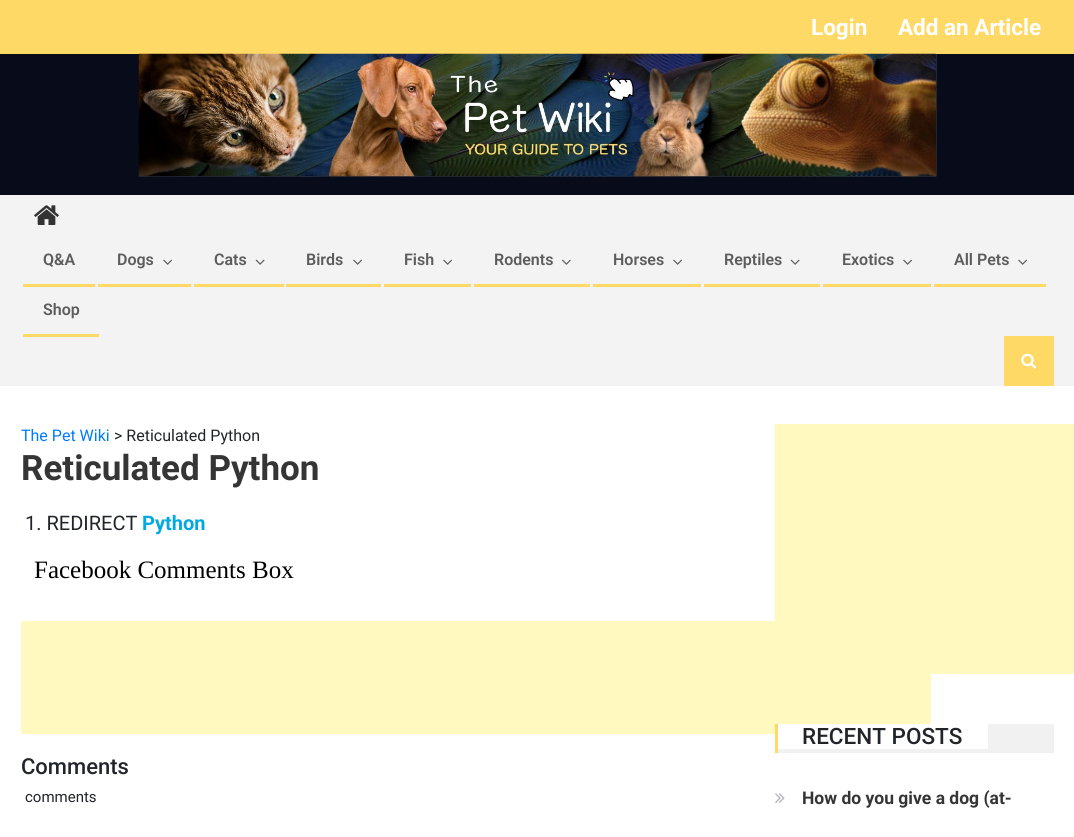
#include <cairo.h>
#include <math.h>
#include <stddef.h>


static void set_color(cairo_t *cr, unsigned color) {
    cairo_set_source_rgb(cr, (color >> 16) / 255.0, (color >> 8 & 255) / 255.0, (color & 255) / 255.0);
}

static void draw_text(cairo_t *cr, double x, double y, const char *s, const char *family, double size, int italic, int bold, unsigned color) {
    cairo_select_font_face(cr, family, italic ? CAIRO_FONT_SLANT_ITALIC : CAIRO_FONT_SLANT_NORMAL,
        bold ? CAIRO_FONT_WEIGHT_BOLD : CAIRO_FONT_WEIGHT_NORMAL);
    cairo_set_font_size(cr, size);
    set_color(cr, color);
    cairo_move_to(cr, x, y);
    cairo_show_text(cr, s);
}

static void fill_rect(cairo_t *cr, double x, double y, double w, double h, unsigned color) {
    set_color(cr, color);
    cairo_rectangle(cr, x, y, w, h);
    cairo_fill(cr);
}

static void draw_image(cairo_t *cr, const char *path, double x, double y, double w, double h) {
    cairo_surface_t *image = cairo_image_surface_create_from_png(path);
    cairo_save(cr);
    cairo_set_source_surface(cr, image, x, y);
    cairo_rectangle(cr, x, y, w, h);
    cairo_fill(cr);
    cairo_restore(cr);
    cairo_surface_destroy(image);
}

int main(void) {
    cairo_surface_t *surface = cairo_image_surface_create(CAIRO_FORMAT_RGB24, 1074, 837);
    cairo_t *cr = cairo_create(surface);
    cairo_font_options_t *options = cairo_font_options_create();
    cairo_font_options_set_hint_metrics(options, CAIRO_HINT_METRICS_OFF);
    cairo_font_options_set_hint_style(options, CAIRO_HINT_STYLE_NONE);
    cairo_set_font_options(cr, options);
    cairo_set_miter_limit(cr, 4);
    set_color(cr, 0xFFFFFF);
    cairo_paint(cr);
    fill_rect(cr, 0, 0, 1074, 54, 0xFFD965);
    draw_text(cr, 811, 35, "Login", "Roboto", 22.5, 0, 1, 0xFFFFFF);
    draw_text(cr, 898, 35, "Add an Article", "Roboto", 22.5, 0, 1, 0xFFFFFF);
    fill_rect(cr, 0, 54, 1074, 141, 0x070B1A);
    draw_image(cr, "assets/img1.png", 138, 53, 799, 124);
    fill_rect(cr, 0, 195, 1074, 191, 0xF3F3F3);
    draw_image(cr, "assets/img2.png", 34, 205, 25, 20);
    fill_rect(cr, 23, 284, 72, 3, 0xFFD965);
    draw_text(cr, 43, 265, "Q&A", "Roboto SemiBold", 16, 0, 0, 0x5D5C5C);
    fill_rect(cr, 98, 284, 93, 3, 0xFFD965);
    draw_text(cr, 117, 265, "Dogs", "Roboto SemiBold", 16, 0, 0, 0x5D5C5C);
    draw_image(cr, "assets/img3.png", 163, 259, 9, 6);
    fill_rect(cr, 194, 284, 90, 3, 0xFFD965);
    draw_text(cr, 214, 265, "Cats", "Roboto SemiBold", 16, 0, 0, 0x5D5C5C);
    draw_image(cr, "assets/img4.png", 255, 259, 10, 6);
    fill_rect(cr, 286, 284, 95, 3, 0xFFD965);
    draw_text(cr, 306, 265, "Birds", "Roboto SemiBold", 16, 0, 0, 0x5D5C5C);
    draw_image(cr, "assets/img3.png", 353, 259, 9, 6);
    fill_rect(cr, 384, 284, 87, 3, 0xFFD965);
    draw_text(cr, 404, 265, "Fish", "Roboto SemiBold", 16, 0, 0, 0x5D5C5C);
    draw_image(cr, "assets/img3.png", 443, 259, 9, 6);
    fill_rect(cr, 474, 284, 116, 3, 0xFFD965);
    draw_text(cr, 494, 265, "Rodents", "Roboto SemiBold", 16, 0, 0, 0x5D5C5C);
    draw_image(cr, "assets/img5.png", 562, 259, 9, 6);
    fill_rect(cr, 593, 284, 108, 3, 0xFFD965);
    draw_text(cr, 613, 265, "Horses", "Roboto SemiBold", 16, 0, 0, 0x5D5C5C);
    draw_image(cr, "assets/img3.png", 673, 259, 9, 6);
    fill_rect(cr, 704, 284, 116, 3, 0xFFD965);
    draw_text(cr, 724, 265, "Reptiles", "Roboto SemiBold", 16, 0, 0, 0x5D5C5C);
    draw_image(cr, "assets/img4.png", 790, 259, 10, 6);
    fill_rect(cr, 823, 284, 108, 3, 0xFFD965);
    draw_text(cr, 842, 265, "Exotics", "Roboto SemiBold", 16, 0, 0, 0x5D5C5C);
    draw_image(cr, "assets/img3.png", 903, 259, 9, 6);
    fill_rect(cr, 934, 284, 112, 3, 0xFFD965);
    draw_text(cr, 954, 265, "All Pets", "Roboto SemiBold", 16, 0, 0, 0x5D5C5C);
    draw_image(cr, "assets/img3.png", 1018, 259, 9, 6);
    fill_rect(cr, 23, 334, 76, 3, 0xFFD965);
    draw_text(cr, 43, 315, "Shop", "Roboto SemiBold", 16, 0, 0, 0x5D5C5C);
    fill_rect(cr, 1004, 336, 50, 50, 0xFFD965);
    draw_image(cr, "assets/img6.png", 1021, 353, 15, 16);
    draw_text(cr, 21, 441, "The Pet Wiki", "Roboto", 16, 0, 0, 0x007BFF);
    draw_text(cr, 114, 441, "> Reticulated Python", "Roboto", 16, 0, 0, 0x212529);
    draw_text(cr, 21, 480, "Reticulated Python", "Roboto", 35, 0, 1, 0x353535);
    draw_text(cr, 25, 530, "1. REDIRECT", "Roboto", 20, 0, 0, 0x212529);
    draw_text(cr, 142, 530, "Python", "Roboto", 20, 0, 1, 0x00A9E0);
    draw_text(cr, 34, 578, "Facebook Comments Box", "Liberation Serif", 25, 0, 0, 0x000000);
    fill_rect(cr, 21, 621, 910, 113, 0xFFF9C0);
    draw_text(cr, 21, 774, "Comments", "Roboto Medium", 22, 0, 0, 0x212529);
    draw_text(cr, 25, 802, "comments", "Roboto", 15, 0, 0, 0x212529);
    fill_rect(cr, 775, 424, 299, 250, 0xFFF9C0);
    fill_rect(cr, 778, 724, 276, 29, 0xF1F1F1);
    fill_rect(cr, 775, 724, 3, 29, 0xFFD965);
    fill_rect(cr, 778, 724, 210, 25, 0xFFFFFF);
    draw_text(cr, 802, 744, "RECENT POSTS", "Roboto Medium", 22.5, 0, 0, 0x212529);
    draw_image(cr, "assets/img7.png", 775, 793, 10, 10);
    draw_text(cr, 802, 804, "How do you give a dog (at-", "Roboto", 17.5, 0, 1, 0x353535);
    cairo_surface_write_to_png(surface, "output.png");
    cairo_font_options_destroy(options);
    cairo_destroy(cr);
    cairo_surface_destroy(surface);
    return 0;
}
